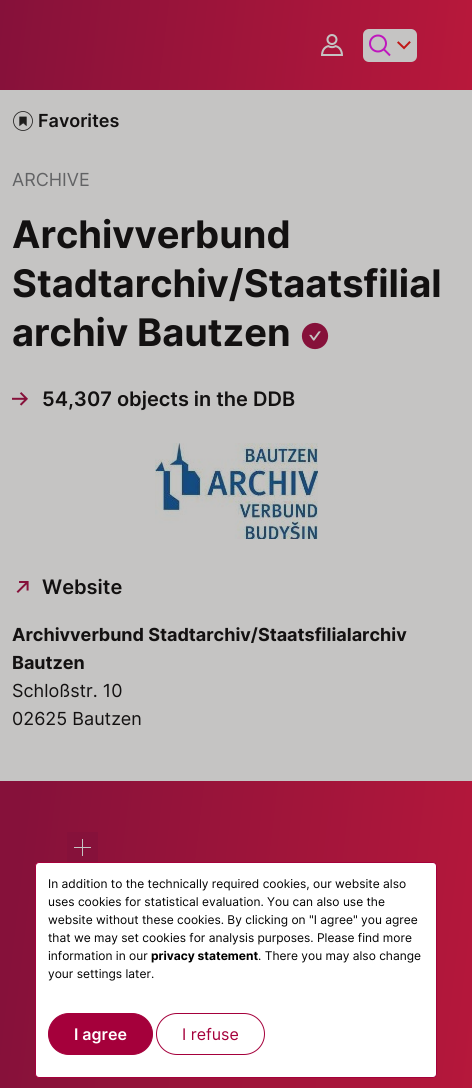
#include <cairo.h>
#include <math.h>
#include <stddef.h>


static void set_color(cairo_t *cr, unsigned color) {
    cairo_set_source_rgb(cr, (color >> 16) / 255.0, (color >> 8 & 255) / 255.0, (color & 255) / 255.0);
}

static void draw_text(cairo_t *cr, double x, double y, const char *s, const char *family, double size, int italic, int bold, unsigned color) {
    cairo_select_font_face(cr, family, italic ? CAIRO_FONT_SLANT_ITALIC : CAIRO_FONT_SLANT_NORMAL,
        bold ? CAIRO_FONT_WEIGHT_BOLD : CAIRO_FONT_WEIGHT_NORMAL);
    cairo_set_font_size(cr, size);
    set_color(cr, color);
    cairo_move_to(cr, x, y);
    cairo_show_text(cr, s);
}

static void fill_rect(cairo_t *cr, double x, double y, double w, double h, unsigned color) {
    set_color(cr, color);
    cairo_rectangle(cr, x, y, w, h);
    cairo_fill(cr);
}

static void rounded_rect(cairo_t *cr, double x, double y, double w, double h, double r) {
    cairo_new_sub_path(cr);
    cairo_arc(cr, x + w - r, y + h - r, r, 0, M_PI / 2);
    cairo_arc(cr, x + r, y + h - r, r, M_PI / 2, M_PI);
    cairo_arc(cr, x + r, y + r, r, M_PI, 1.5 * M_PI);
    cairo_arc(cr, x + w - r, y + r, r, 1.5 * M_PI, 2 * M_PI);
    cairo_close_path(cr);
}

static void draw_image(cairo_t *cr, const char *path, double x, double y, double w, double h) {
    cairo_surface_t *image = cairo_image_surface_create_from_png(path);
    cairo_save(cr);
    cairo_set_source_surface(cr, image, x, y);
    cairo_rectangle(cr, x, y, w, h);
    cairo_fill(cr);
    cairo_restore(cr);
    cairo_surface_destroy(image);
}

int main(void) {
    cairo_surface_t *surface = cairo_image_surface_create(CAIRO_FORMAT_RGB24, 472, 1088);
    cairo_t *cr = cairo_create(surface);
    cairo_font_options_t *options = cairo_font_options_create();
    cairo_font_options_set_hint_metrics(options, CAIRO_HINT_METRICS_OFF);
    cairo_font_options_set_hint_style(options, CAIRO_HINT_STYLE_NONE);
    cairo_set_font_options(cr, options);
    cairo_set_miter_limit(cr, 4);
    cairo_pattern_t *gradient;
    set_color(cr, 0xC5C4C3);
    cairo_paint(cr);
    gradient = cairo_pattern_create_linear(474, 74, -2, 16);
    cairo_pattern_add_color_stop_rgba(gradient, 0, 0.722, 0.094, 0.231, 1);
    cairo_pattern_add_color_stop_rgba(gradient, 1, 0.525, 0.067, 0.227, 1);
    cairo_set_source(cr, gradient);
    cairo_pattern_destroy(gradient);
    cairo_rectangle(cr, 0, 0, 472, 90);
    cairo_fill(cr);
    draw_image(cr, "assets/img1.png", 321, 34, 22, 22);
    set_color(cr, 0xC5C4C3);
    rounded_rect(cr, 363, 29, 54, 33, 6);
    cairo_fill(cr);
    cairo_new_path(cr);
    cairo_move_to(cr, 384, 49.5);
    cairo_line_to(cr, 390, 55.5);
    set_color(cr, 0xBF17BD);
    cairo_stroke(cr);
    cairo_arc(cr, 378, 43.5, 8, 0, 2 * M_PI);
    cairo_stroke(cr);
    draw_image(cr, "assets/img2.png", 397, 41, 14, 9);
    draw_image(cr, "assets/img3.png", 13, 111, 20, 20);
    draw_text(cr, 38, 127, "Favorites", "Inter SemiBold", 18, 0, 0, 0x131111);
    draw_text(cr, 12, 186, "ARCHIVE", "Inter", 18, 0, 0, 0x626365);
    draw_text(cr, 12, 248, "Archivverbund", "Inter", 38, 0, 1, 0x131111);
    draw_text(cr, 12, 297, "Stadtarchiv/Staatsfilial", "Inter", 38, 0, 1, 0x131111);
    draw_text(cr, 12, 346, "archiv Bautzen", "Inter", 38, 0, 1, 0x131111);
    draw_image(cr, "assets/img4.png", 301, 322, 28, 28);
    draw_image(cr, "assets/img5.png", 12, 392, 16, 14);
    draw_text(cr, 42, 406, "54,307 objects in the DDB", "Inter SemiBold", 20, 0, 0, 0x131111);
    draw_image(cr, "assets/img6.png", 155, 443, 163, 96);
    draw_image(cr, "assets/img7.png", 16, 581, 13, 12);
    draw_text(cr, 42, 594, "Website", "Inter SemiBold", 20, 0, 0, 0x131111);
    draw_text(cr, 12, 641, "Archivverbund Stadtarchiv/Staatsfilialarchiv", "Inter", 18, 0, 1, 0x131111);
    draw_text(cr, 12, 669, "Bautzen", "Inter", 18, 0, 1, 0x131111);
    draw_text(cr, 12, 697, "Schloßstr. 10", "Inter", 18, 0, 0, 0x131111);
    draw_text(cr, 12, 725, "02625 Bautzen", "Inter", 18, 0, 0, 0x131111);
    gradient = cairo_pattern_create_linear(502, 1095, -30, 1032);
    cairo_pattern_add_color_stop_rgba(gradient, 0.01, 0.722, 0.094, 0.231, 1);
    cairo_pattern_add_color_stop_rgba(gradient, 0.95, 0.525, 0.067, 0.227, 1);
    cairo_set_source(cr, gradient);
    cairo_pattern_destroy(gradient);
    cairo_rectangle(cr, 0, 781, 472, 307);
    cairo_fill(cr);
    fill_rect(cr, 67, 832, 31, 30, 0x86113A);
    fill_rect(cr, 82, 839, 1, 17, 0xC5C4C3);
    fill_rect(cr, 74, 847, 17, 1, 0xC5C4C3);
    set_color(cr, 0xFFFFFF);
    rounded_rect(cr, 35.5, 862.5, 401, 215, 3.5);
    cairo_fill_preserve(cr);
    set_color(cr, 0xA5003B);
    cairo_set_line_width(cr, 1);
    cairo_stroke(cr);
    draw_text(cr, 48, 888, "In addition to the technically required cookies, our website also", "Inter", 12, 0, 0, 0x000000);
    draw_text(cr, 48, 906, "uses cookies for statistical evaluation. You can also use the", "Inter", 12, 0, 0, 0x000000);
    draw_text(cr, 48, 924, "website without these cookies. By clicking on \"I agree\" you agree", "Inter", 12, 0, 0, 0x000000);
    draw_text(cr, 48, 942, "that we may set cookies for analysis purposes. Please find more", "Inter", 12, 0, 0, 0x000000);
    draw_text(cr, 48, 960, "information in our", "Inter", 12, 0, 0, 0x000000);
    draw_text(cr, 151, 960, "privacy statement", "Inter", 12, 0, 1, 0x000000);
    draw_text(cr, 258, 960, ". There you may also change", "Inter", 12, 0, 0, 0x000000);
    draw_text(cr, 48, 978, "your settings later.", "Inter", 12, 0, 0, 0x000000);
    set_color(cr, 0xA5003B);
    rounded_rect(cr, 48.5, 1013.5, 104, 41, 20.5);
    cairo_fill_preserve(cr);
    cairo_stroke(cr);
    draw_text(cr, 74, 1040, "I agree", "Inter SemiBold", 16, 0, 0, 0xFFFFFF);
    rounded_rect(cr, 156.5, 1013.5, 108, 41, 20.5);
    set_color(cr, 0xA5003B);
    cairo_stroke(cr);
    draw_text(cr, 182, 1040, "I refuse", "Inter", 16, 0, 0, 0xA5003B);
    cairo_surface_write_to_png(surface, "output.png");
    cairo_font_options_destroy(options);
    cairo_destroy(cr);
    cairo_surface_destroy(surface);
    return 0;
}
